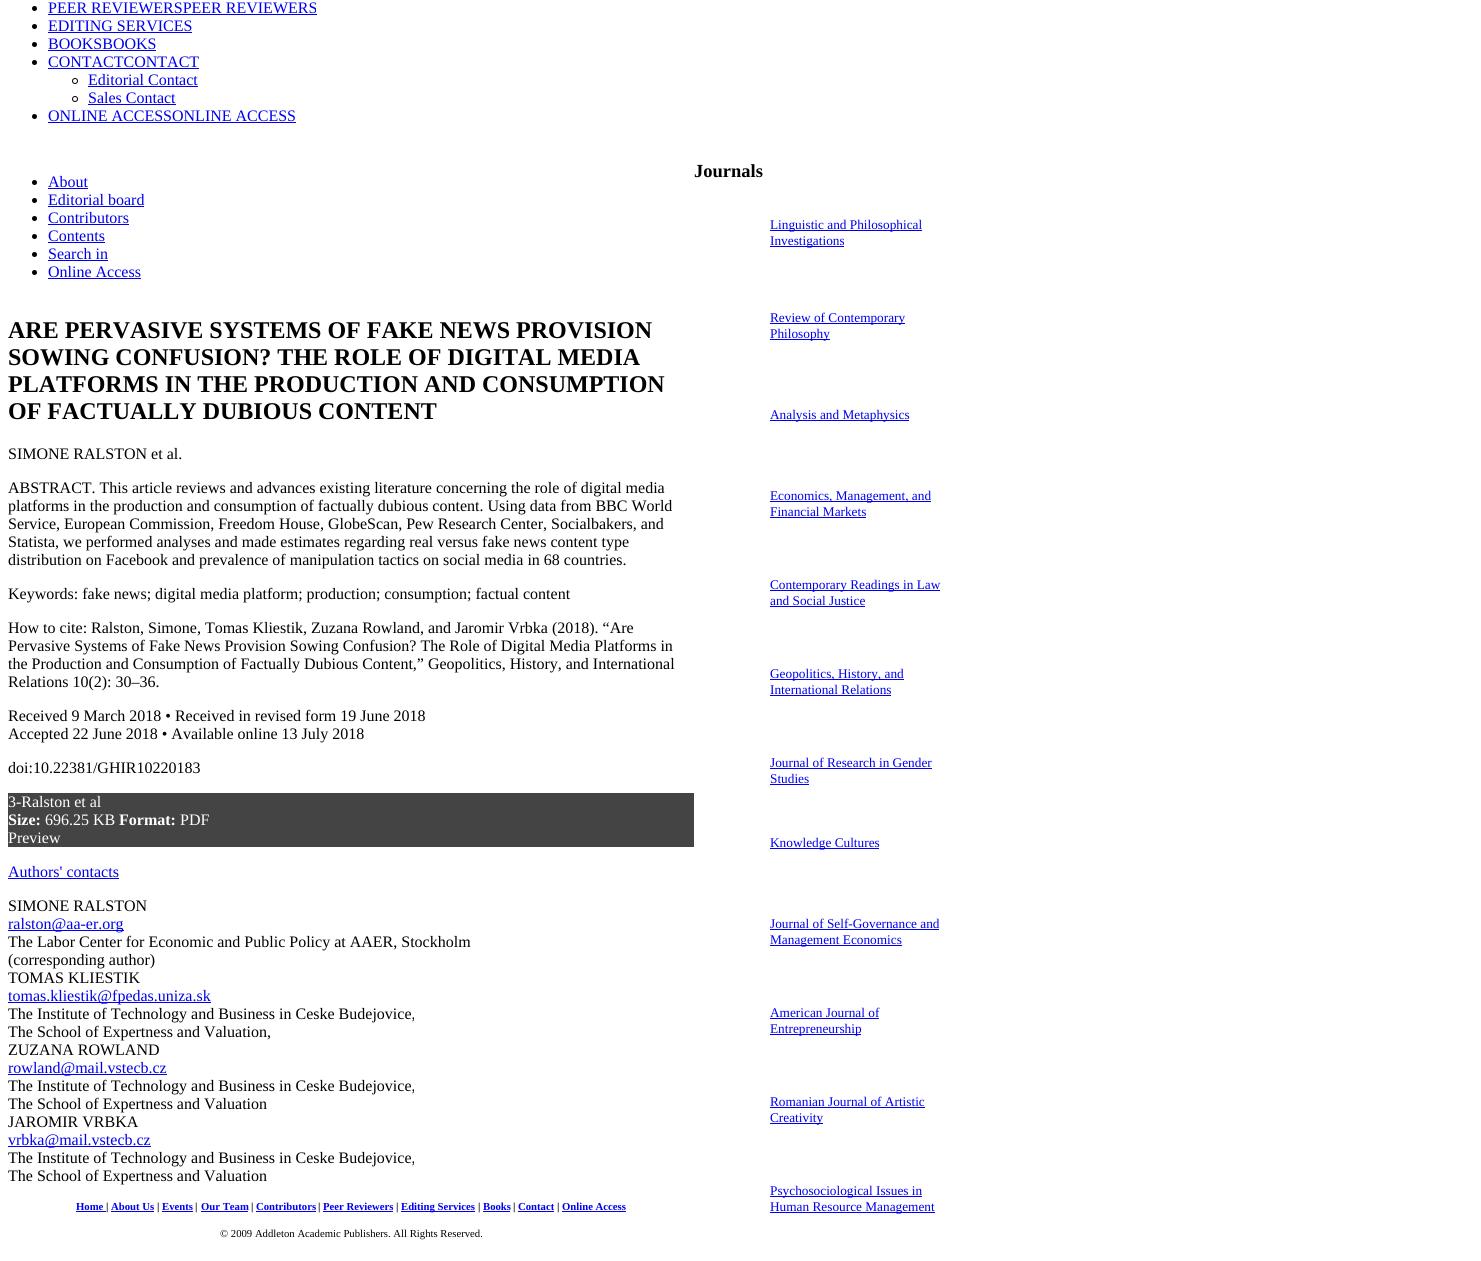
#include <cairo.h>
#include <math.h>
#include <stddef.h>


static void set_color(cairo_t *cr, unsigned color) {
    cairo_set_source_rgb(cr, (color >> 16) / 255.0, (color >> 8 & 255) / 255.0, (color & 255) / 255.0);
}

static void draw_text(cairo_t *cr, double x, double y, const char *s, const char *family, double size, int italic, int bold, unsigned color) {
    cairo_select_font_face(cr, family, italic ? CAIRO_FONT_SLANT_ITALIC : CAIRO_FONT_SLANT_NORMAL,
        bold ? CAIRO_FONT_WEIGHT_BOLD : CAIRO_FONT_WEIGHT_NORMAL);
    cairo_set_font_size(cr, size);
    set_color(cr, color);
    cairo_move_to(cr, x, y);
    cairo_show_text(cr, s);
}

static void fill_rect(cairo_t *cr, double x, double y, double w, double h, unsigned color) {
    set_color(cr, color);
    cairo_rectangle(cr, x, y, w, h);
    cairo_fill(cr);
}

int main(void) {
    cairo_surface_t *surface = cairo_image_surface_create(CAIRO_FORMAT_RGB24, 1481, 1261);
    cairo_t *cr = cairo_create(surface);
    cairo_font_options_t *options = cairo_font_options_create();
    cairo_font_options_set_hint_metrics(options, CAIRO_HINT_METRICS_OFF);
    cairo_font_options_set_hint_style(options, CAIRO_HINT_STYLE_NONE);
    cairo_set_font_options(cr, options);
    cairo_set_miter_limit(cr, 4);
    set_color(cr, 0xFFFFFF);
    cairo_paint(cr);
    set_color(cr, 0x000000);
    cairo_arc(cr, 34.5, 8.5, 2.5, 0, 2 * M_PI);
    cairo_fill(cr);
    draw_text(cr, 48, 13, "PEER REVIEWERSPEER REVIEWERS", "Liberation Serif", 16, 0, 0, 0x0000EE);
    fill_rect(cr, 48, 14, 269, 1, 0x0000EE);
    set_color(cr, 0x000000);
    cairo_new_path(cr);
    cairo_arc(cr, 34.5, 26.5, 2.5, 0, 2 * M_PI);
    cairo_fill(cr);
    draw_text(cr, 48, 31, "EDITING SERVICES", "Liberation Serif", 16, 0, 0, 0x0000EE);
    fill_rect(cr, 48, 32, 144, 1, 0x0000EE);
    set_color(cr, 0x000000);
    cairo_new_path(cr);
    cairo_arc(cr, 34.5, 44.5, 2.5, 0, 2 * M_PI);
    cairo_fill(cr);
    draw_text(cr, 48, 49, "BOOKSBOOKS", "Liberation Serif", 16, 0, 0, 0x0000EE);
    fill_rect(cr, 48, 50, 108, 1, 0x0000EE);
    set_color(cr, 0x000000);
    cairo_new_path(cr);
    cairo_arc(cr, 34.5, 62.5, 2.5, 0, 2 * M_PI);
    cairo_fill(cr);
    draw_text(cr, 48, 67, "CONTACTCONTACT", "Liberation Serif", 16, 0, 0, 0x0000EE);
    fill_rect(cr, 48, 68, 151, 1, 0x0000EE);
    cairo_new_path(cr);
    cairo_arc(cr, 75, 81, 2.5, 0, 2 * M_PI);
    set_color(cr, 0x000000);
    cairo_set_line_width(cr, 1);
    cairo_stroke(cr);
    draw_text(cr, 88, 85, "Editorial Contact", "Liberation Serif", 16, 0, 0, 0x0000EE);
    fill_rect(cr, 88, 86, 110, 1, 0x0000EE);
    cairo_new_path(cr);
    cairo_arc(cr, 75, 99, 2.5, 0, 2 * M_PI);
    set_color(cr, 0x000000);
    cairo_stroke(cr);
    draw_text(cr, 88, 103, "Sales Contact", "Liberation Serif", 16, 0, 0, 0x0000EE);
    fill_rect(cr, 88, 104, 88, 1, 0x0000EE);
    set_color(cr, 0x000000);
    cairo_new_path(cr);
    cairo_arc(cr, 34.5, 116.5, 2.5, 0, 2 * M_PI);
    cairo_fill(cr);
    draw_text(cr, 48, 121, "ONLINE ACCESSONLINE ACCESS", "Liberation Serif", 16, 0, 0, 0x0000EE);
    fill_rect(cr, 48, 122, 248, 1, 0x0000EE);
    set_color(cr, 0x000000);
    cairo_new_path(cr);
    cairo_arc(cr, 34.5, 182.5, 2.5, 0, 2 * M_PI);
    cairo_fill(cr);
    draw_text(cr, 48, 187, "About", "Liberation Serif", 16, 0, 0, 0x0000EE);
    fill_rect(cr, 48, 188, 40, 1, 0x0000EE);
    set_color(cr, 0x000000);
    cairo_new_path(cr);
    cairo_arc(cr, 34.5, 200.5, 2.5, 0, 2 * M_PI);
    cairo_fill(cr);
    draw_text(cr, 48, 205, "Editorial board", "Liberation Serif", 16, 0, 0, 0x0000EE);
    fill_rect(cr, 48, 206, 96, 1, 0x0000EE);
    set_color(cr, 0x000000);
    cairo_new_path(cr);
    cairo_arc(cr, 34.5, 218.5, 2.5, 0, 2 * M_PI);
    cairo_fill(cr);
    draw_text(cr, 48, 223, "Contributors", "Liberation Serif", 16, 0, 0, 0x0000EE);
    fill_rect(cr, 48, 224, 81, 1, 0x0000EE);
    set_color(cr, 0x000000);
    cairo_new_path(cr);
    cairo_arc(cr, 34.5, 236.5, 2.5, 0, 2 * M_PI);
    cairo_fill(cr);
    draw_text(cr, 48, 241, "Contents", "Liberation Serif", 16, 0, 0, 0x0000EE);
    fill_rect(cr, 48, 242, 57, 1, 0x0000EE);
    set_color(cr, 0x000000);
    cairo_new_path(cr);
    cairo_arc(cr, 34.5, 254.5, 2.5, 0, 2 * M_PI);
    cairo_fill(cr);
    draw_text(cr, 48, 259, "Search in", "Liberation Serif", 16, 0, 0, 0x0000EE);
    fill_rect(cr, 48, 260, 60, 1, 0x0000EE);
    set_color(cr, 0x000000);
    cairo_new_path(cr);
    cairo_arc(cr, 34.5, 272.5, 2.5, 0, 2 * M_PI);
    cairo_fill(cr);
    draw_text(cr, 48, 277, "Online Access", "Liberation Serif", 16, 0, 0, 0x0000EE);
    fill_rect(cr, 48, 278, 93, 1, 0x0000EE);
    draw_text(cr, 8, 338, "ARE PERVASIVE SYSTEMS OF FAKE NEWS PROVISION", "Liberation Serif", 24, 0, 1, 0x000000);
    draw_text(cr, 8, 365, "SOWING CONFUSION? THE ROLE OF DIGITAL MEDIA", "Liberation Serif", 24, 0, 1, 0x000000);
    draw_text(cr, 8, 392, "PLATFORMS IN THE PRODUCTION AND CONSUMPTION", "Liberation Serif", 24, 0, 1, 0x000000);
    draw_text(cr, 8, 419, "OF FACTUALLY DUBIOUS CONTENT", "Liberation Serif", 24, 0, 1, 0x000000);
    draw_text(cr, 8, 459, "SIMONE RALSTON et al.", "Liberation Serif", 16, 0, 0, 0x000000);
    draw_text(cr, 8, 493, "ABSTRACT. This article reviews and advances existing literature concerning the role of digital media", "Liberation Serif", 16, 0, 0, 0x000000);
    draw_text(cr, 8, 511, "platforms in the production and consumption of factually dubious content. Using data from BBC World", "Liberation Serif", 16, 0, 0, 0x000000);
    draw_text(cr, 8, 529, "Service, European Commission, Freedom House, GlobeScan, Pew Research Center, Socialbakers, and", "Liberation Serif", 16, 0, 0, 0x000000);
    draw_text(cr, 8, 547, "Statista, we performed analyses and made estimates regarding real versus fake news content type", "Liberation Serif", 16, 0, 0, 0x000000);
    draw_text(cr, 8, 565, "distribution on Facebook and prevalence of manipulation tactics on social media in 68 countries.", "Liberation Serif", 16, 0, 0, 0x000000);
    draw_text(cr, 8, 599, "Keywords: fake news; digital media platform; production; consumption; factual content", "Liberation Serif", 16, 0, 0, 0x000000);
    draw_text(cr, 8, 633, "How to cite: Ralston, Simone, Tomas Kliestik, Zuzana Rowland, and Jaromir Vrbka (2018). “Are", "Liberation Serif", 16, 0, 0, 0x000000);
    draw_text(cr, 8, 651, "Pervasive Systems of Fake News Provision Sowing Confusion? The Role of Digital Media Platforms in", "Liberation Serif", 16, 0, 0, 0x000000);
    draw_text(cr, 8, 669, "the Production and Consumption of Factually Dubious Content,” Geopolitics, History, and International", "Liberation Serif", 16, 0, 0, 0x000000);
    draw_text(cr, 8, 687, "Relations 10(2): 30–36.", "Liberation Serif", 16, 0, 0, 0x000000);
    draw_text(cr, 8, 721, "Received 9 March 2018 • Received in revised form 19 June 2018", "Liberation Serif", 16, 0, 0, 0x000000);
    draw_text(cr, 8, 739, "Accepted 22 June 2018 • Available online 13 July 2018", "Liberation Serif", 16, 0, 0, 0x000000);
    draw_text(cr, 8, 773, "doi:10.22381/GHIR10220183", "Liberation Serif", 16, 0, 0, 0x000000);
    fill_rect(cr, 8, 793, 686, 54, 0x444444);
    draw_text(cr, 8, 807, "3-Ralston et al", "Liberation Serif", 16, 0, 0, 0xFFFFFF);
    draw_text(cr, 8, 825, "Size:", "Liberation Serif", 16, 0, 1, 0xFFFFFF);
    draw_text(cr, 45, 825, "696.25 KB", "Liberation Serif", 16, 0, 0, 0xFFFFFF);
    draw_text(cr, 119, 825, "Format:", "Liberation Serif", 16, 0, 1, 0xFFFFFF);
    draw_text(cr, 180, 825, "PDF", "Liberation Serif", 16, 0, 0, 0xFFFFFF);
    draw_text(cr, 8, 843, "Preview", "Liberation Serif", 16, 0, 0, 0xFFFFFF);
    draw_text(cr, 8, 877, "Authors' contacts", "Liberation Serif", 16, 0, 0, 0x0000EE);
    fill_rect(cr, 8, 878, 111, 1, 0x0000EE);
    draw_text(cr, 8, 911, "SIMONE RALSTON", "Liberation Serif", 16, 0, 0, 0x000000);
    fill_rect(cr, 8, 930, 116, 1, 0x0000EE);
    draw_text(cr, 8, 929, "ralston@aa-er.org", "Liberation Serif", 16, 0, 0, 0x0000EE);
    draw_text(cr, 8, 947, "The Labor Center for Economic and Public Policy at AAER, Stockholm", "Liberation Serif", 16, 0, 0, 0x000000);
    draw_text(cr, 8, 965, "(corresponding author)", "Liberation Serif", 16, 0, 0, 0x000000);
    draw_text(cr, 8, 983, "TOMAS KLIESTIK", "Liberation Serif", 16, 0, 0, 0x000000);
    fill_rect(cr, 8, 1002, 203, 1, 0x0000EE);
    draw_text(cr, 8, 1001, "tomas.kliestik@fpedas.uniza.sk", "Liberation Serif", 16, 0, 0, 0x0000EE);
    draw_text(cr, 8, 1019, "The Institute of Technology and Business in Ceske Budejovice,", "Liberation Serif", 16, 0, 0, 0x000000);
    draw_text(cr, 8, 1037, "The School of Expertness and Valuation,", "Liberation Serif", 16, 0, 0, 0x000000);
    draw_text(cr, 8, 1055, "ZUZANA ROWLAND", "Liberation Serif", 16, 0, 0, 0x000000);
    fill_rect(cr, 8, 1074, 159, 1, 0x0000EE);
    draw_text(cr, 8, 1073, "rowland@mail.vstecb.cz", "Liberation Serif", 16, 0, 0, 0x0000EE);
    draw_text(cr, 8, 1091, "The Institute of Technology and Business in Ceske Budejovice,", "Liberation Serif", 16, 0, 0, 0x000000);
    draw_text(cr, 8, 1109, "The School of Expertness and Valuation", "Liberation Serif", 16, 0, 0, 0x000000);
    draw_text(cr, 8, 1127, "JAROMIR VRBKA", "Liberation Serif", 16, 0, 0, 0x000000);
    fill_rect(cr, 8, 1146, 143, 1, 0x0000EE);
    draw_text(cr, 8, 1145, "vrbka@mail.vstecb.cz", "Liberation Serif", 16, 0, 0, 0x0000EE);
    draw_text(cr, 8, 1163, "The Institute of Technology and Business in Ceske Budejovice,", "Liberation Serif", 16, 0, 0, 0x000000);
    draw_text(cr, 8, 1181, "The School of Expertness and Valuation", "Liberation Serif", 16, 0, 0, 0x000000);
    draw_text(cr, 694, 177, "Journals", "Liberation Serif", 18.5, 0, 1, 0x000000);
    fill_rect(cr, 770, 230, 152, 1, 0x0000EE);
    draw_text(cr, 770, 229, "Linguistic and Philosophical", "Liberation Serif", 13.3, 0, 0, 0x0000EE);
    fill_rect(cr, 770, 246, 74, 1, 0x0000EE);
    draw_text(cr, 770, 245, "Investigations", "Liberation Serif", 13.3, 0, 0, 0x0000EE);
    fill_rect(cr, 770, 323, 135, 1, 0x0000EE);
    draw_text(cr, 770, 322, "Review of Contemporary", "Liberation Serif", 13.3, 0, 0, 0x0000EE);
    fill_rect(cr, 770, 339, 60, 1, 0x0000EE);
    draw_text(cr, 770, 338, "Philosophy", "Liberation Serif", 13.3, 0, 0, 0x0000EE);
    fill_rect(cr, 770, 420, 139, 1, 0x0000EE);
    draw_text(cr, 770, 419, "Analysis and Metaphysics", "Liberation Serif", 13.3, 0, 0, 0x0000EE);
    fill_rect(cr, 770, 501, 161, 1, 0x0000EE);
    draw_text(cr, 770, 500, "Economics, Management, and", "Liberation Serif", 13.3, 0, 0, 0x0000EE);
    draw_text(cr, 770, 516, "Financial Markets", "Liberation Serif", 13.3, 0, 0, 0x0000EE);
    fill_rect(cr, 770, 517, 96, 1, 0x0000EE);
    fill_rect(cr, 770, 590, 170, 1, 0x0000EE);
    draw_text(cr, 770, 589, "Contemporary Readings in Law", "Liberation Serif", 13.3, 0, 0, 0x0000EE);
    draw_text(cr, 770, 605, "and Social Justice", "Liberation Serif", 13.3, 0, 0, 0x0000EE);
    fill_rect(cr, 770, 606, 95, 1, 0x0000EE);
    fill_rect(cr, 770, 679, 134, 1, 0x0000EE);
    draw_text(cr, 770, 678, "Geopolitics, History, and", "Liberation Serif", 13.3, 0, 0, 0x0000EE);
    draw_text(cr, 770, 694, "International Relations", "Liberation Serif", 13.3, 0, 0, 0x0000EE);
    fill_rect(cr, 770, 695, 121, 1, 0x0000EE);
    draw_text(cr, 770, 767, "Journal of Research in Gender", "Liberation Serif", 13.3, 0, 0, 0x0000EE);
    fill_rect(cr, 770, 768, 162, 1, 0x0000EE);
    draw_text(cr, 770, 783, "Studies", "Liberation Serif", 13.3, 0, 0, 0x0000EE);
    fill_rect(cr, 770, 784, 39, 1, 0x0000EE);
    fill_rect(cr, 770, 848, 109, 1, 0x0000EE);
    draw_text(cr, 770, 847, "Knowledge Cultures", "Liberation Serif", 13.3, 0, 0, 0x0000EE);
    draw_text(cr, 770, 928, "Journal of Self-Governance and", "Liberation Serif", 13.3, 0, 0, 0x0000EE);
    fill_rect(cr, 770, 929, 169, 1, 0x0000EE);
    fill_rect(cr, 770, 945, 132, 1, 0x0000EE);
    draw_text(cr, 770, 944, "Management Economics", "Liberation Serif", 13.3, 0, 0, 0x0000EE);
    draw_text(cr, 770, 1017, "American Journal of", "Liberation Serif", 13.3, 0, 0, 0x0000EE);
    fill_rect(cr, 770, 1018, 109, 1, 0x0000EE);
    fill_rect(cr, 770, 1034, 91, 1, 0x0000EE);
    draw_text(cr, 770, 1033, "Entrepreneurship", "Liberation Serif", 13.3, 0, 0, 0x0000EE);
    draw_text(cr, 770, 1106, "Romanian Journal of Artistic", "Liberation Serif", 13.3, 0, 0, 0x0000EE);
    fill_rect(cr, 770, 1107, 155, 1, 0x0000EE);
    fill_rect(cr, 770, 1123, 53, 1, 0x0000EE);
    draw_text(cr, 770, 1122, "Creativity", "Liberation Serif", 13.3, 0, 0, 0x0000EE);
    fill_rect(cr, 770, 1196, 152, 1, 0x0000EE);
    draw_text(cr, 770, 1195, "Psychosociological Issues in", "Liberation Serif", 13.3, 0, 0, 0x0000EE);
    fill_rect(cr, 770, 1212, 165, 1, 0x0000EE);
    draw_text(cr, 770, 1211, "Human Resource Management", "Liberation Serif", 13.3, 0, 0, 0x0000EE);
    draw_text(cr, 76, 1210, "Home", "Liberation Serif", 10.7, 0, 1, 0x0000EE);
    fill_rect(cr, 76, 1211, 30, 1, 0x0000EE);
    draw_text(cr, 106, 1210, "|", "Liberation Serif", 10.7, 0, 1, 0x000000);
    draw_text(cr, 111, 1210, "About Us", "Liberation Serif", 10.7, 0, 1, 0x0000EE);
    fill_rect(cr, 111, 1211, 43, 1, 0x0000EE);
    draw_text(cr, 157, 1210, "|", "Liberation Serif", 10.7, 0, 1, 0x000000);
    draw_text(cr, 162, 1210, "Events", "Liberation Serif", 10.7, 0, 1, 0x0000EE);
    fill_rect(cr, 162, 1211, 31, 1, 0x0000EE);
    draw_text(cr, 195, 1210, "|", "Liberation Serif", 10.7, 0, 1, 0x000000);
    draw_text(cr, 201, 1210, "Our Team", "Liberation Serif", 10.7, 0, 1, 0x0000EE);
    fill_rect(cr, 201, 1211, 47, 1, 0x0000EE);
    draw_text(cr, 251, 1210, "|", "Liberation Serif", 10.7, 0, 1, 0x000000);
    draw_text(cr, 256, 1210, "Contributors", "Liberation Serif", 10.7, 0, 1, 0x0000EE);
    fill_rect(cr, 256, 1211, 60, 1, 0x0000EE);
    draw_text(cr, 318, 1210, "|", "Liberation Serif", 10.7, 0, 1, 0x000000);
    draw_text(cr, 323, 1210, "Peer Reviewers", "Liberation Serif", 10.7, 0, 1, 0x0000EE);
    fill_rect(cr, 323, 1211, 70, 1, 0x0000EE);
    draw_text(cr, 396, 1210, "|", "Liberation Serif", 10.7, 0, 1, 0x000000);
    fill_rect(cr, 401, 1211, 74, 1, 0x0000EE);
    draw_text(cr, 401, 1210, "Editing Services", "Liberation Serif", 10.7, 0, 1, 0x0000EE);
    draw_text(cr, 478, 1210, "|", "Liberation Serif", 10.7, 0, 1, 0x000000);
    draw_text(cr, 483, 1210, "Books", "Liberation Serif", 10.7, 0, 1, 0x0000EE);
    fill_rect(cr, 483, 1211, 27, 1, 0x0000EE);
    draw_text(cr, 513, 1210, "|", "Liberation Serif", 10.7, 0, 1, 0x000000);
    draw_text(cr, 518, 1210, "Contact", "Liberation Serif", 10.7, 0, 1, 0x0000EE);
    fill_rect(cr, 518, 1211, 36, 1, 0x0000EE);
    draw_text(cr, 557, 1210, "|", "Liberation Serif", 10.7, 0, 1, 0x000000);
    draw_text(cr, 562, 1210, "Online Access", "Liberation Serif", 10.7, 0, 1, 0x0000EE);
    fill_rect(cr, 562, 1211, 64, 1, 0x0000EE);
    draw_text(cr, 220, 1237, "© 2009 Addleton Academic Publishers. All Rights Reserved.", "Liberation Serif", 10.7, 0, 0, 0x000000);
    cairo_surface_write_to_png(surface, "output.png");
    cairo_font_options_destroy(options);
    cairo_destroy(cr);
    cairo_surface_destroy(surface);
    return 0;
}
